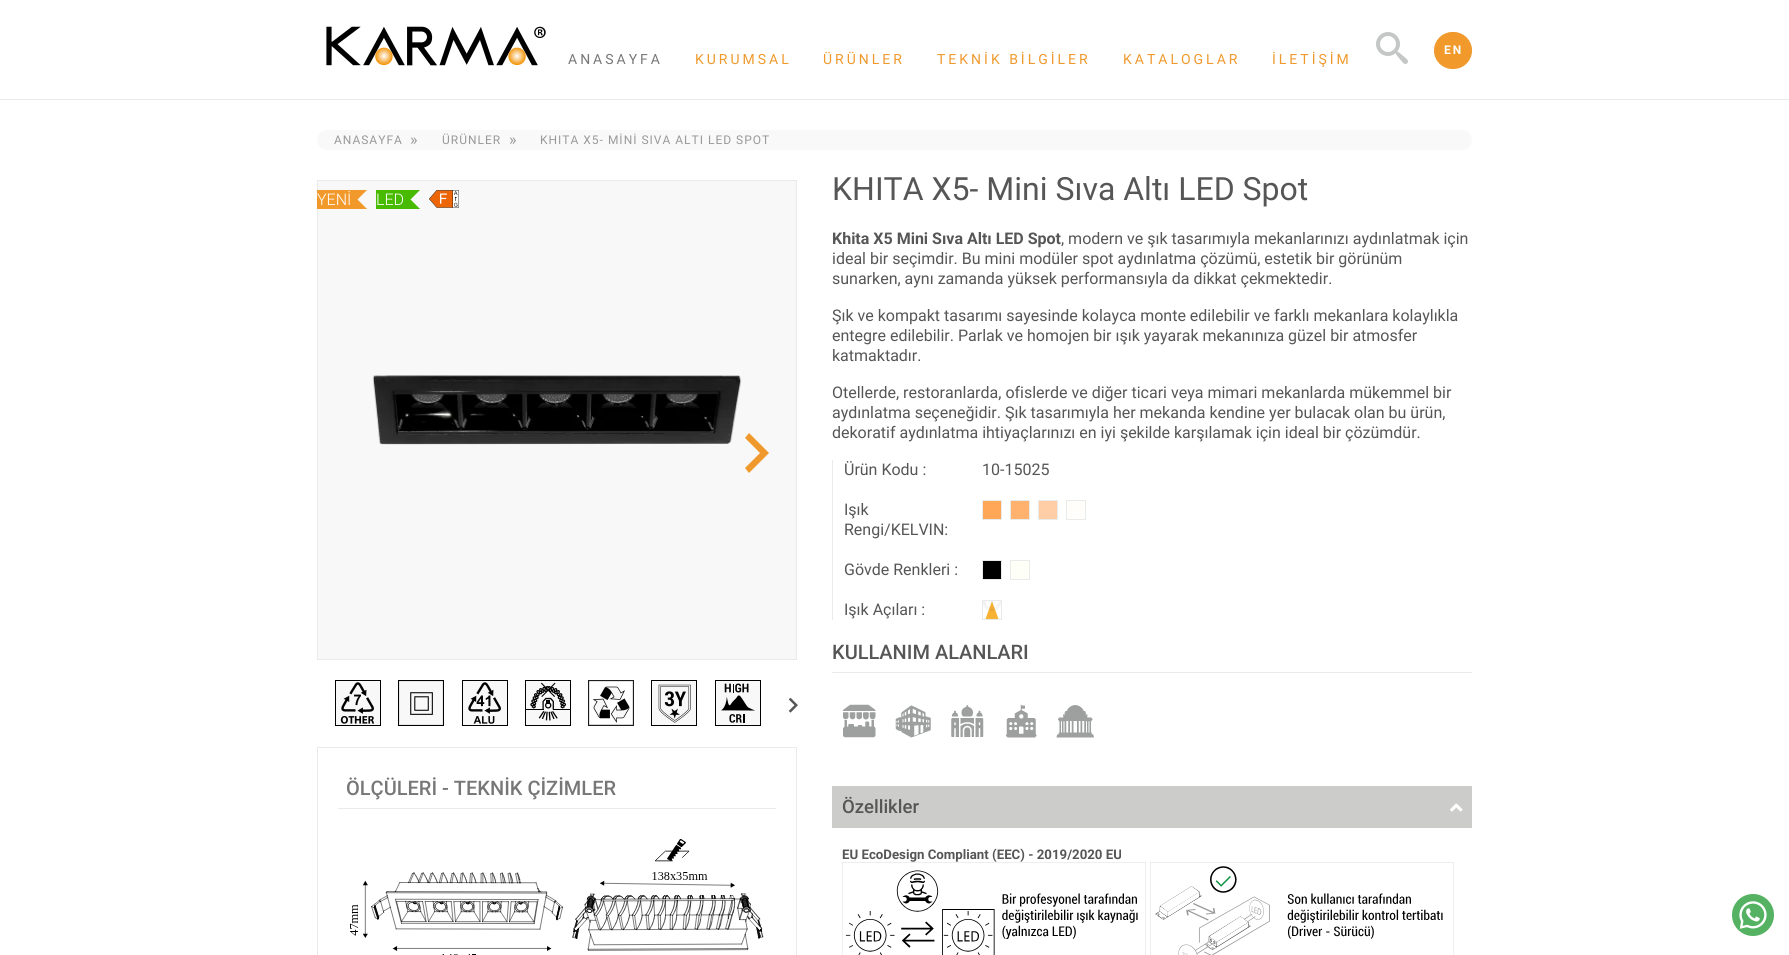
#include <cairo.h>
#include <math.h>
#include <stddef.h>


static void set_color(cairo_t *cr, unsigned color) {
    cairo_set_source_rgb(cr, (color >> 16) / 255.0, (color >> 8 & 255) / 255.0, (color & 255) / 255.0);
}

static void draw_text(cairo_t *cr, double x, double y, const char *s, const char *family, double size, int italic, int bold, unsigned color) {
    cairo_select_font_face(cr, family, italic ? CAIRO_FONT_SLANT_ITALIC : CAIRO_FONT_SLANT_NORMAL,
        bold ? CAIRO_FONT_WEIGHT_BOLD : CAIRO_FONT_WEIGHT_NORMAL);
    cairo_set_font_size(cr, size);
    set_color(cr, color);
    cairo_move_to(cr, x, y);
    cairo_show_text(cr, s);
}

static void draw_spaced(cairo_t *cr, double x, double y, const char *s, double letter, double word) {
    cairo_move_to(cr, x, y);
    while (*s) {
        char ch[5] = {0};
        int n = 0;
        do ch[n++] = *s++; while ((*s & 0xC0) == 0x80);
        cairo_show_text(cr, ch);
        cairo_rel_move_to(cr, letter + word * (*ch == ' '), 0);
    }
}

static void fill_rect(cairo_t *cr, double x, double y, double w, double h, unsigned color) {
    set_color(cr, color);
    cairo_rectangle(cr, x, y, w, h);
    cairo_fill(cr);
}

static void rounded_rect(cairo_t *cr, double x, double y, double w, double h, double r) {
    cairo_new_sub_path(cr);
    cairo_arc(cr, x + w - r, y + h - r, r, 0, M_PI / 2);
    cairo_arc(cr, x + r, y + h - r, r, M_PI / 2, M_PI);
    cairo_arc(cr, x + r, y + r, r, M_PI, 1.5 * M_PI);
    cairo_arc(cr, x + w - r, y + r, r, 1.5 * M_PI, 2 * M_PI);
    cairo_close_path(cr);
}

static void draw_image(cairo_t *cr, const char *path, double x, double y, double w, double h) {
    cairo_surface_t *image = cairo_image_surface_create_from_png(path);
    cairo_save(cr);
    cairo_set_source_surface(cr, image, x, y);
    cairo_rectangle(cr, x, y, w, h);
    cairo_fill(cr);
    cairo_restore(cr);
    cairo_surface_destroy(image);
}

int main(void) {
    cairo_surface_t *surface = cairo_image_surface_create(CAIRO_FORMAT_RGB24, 1789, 955);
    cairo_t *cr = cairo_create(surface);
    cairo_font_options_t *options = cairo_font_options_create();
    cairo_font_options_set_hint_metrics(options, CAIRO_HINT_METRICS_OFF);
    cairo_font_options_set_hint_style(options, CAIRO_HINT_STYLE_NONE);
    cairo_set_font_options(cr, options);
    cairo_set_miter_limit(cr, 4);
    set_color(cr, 0xFFFFFF);
    cairo_paint(cr);
    fill_rect(cr, 0, 99, 1789, 1, 0xE9EAEA);
    draw_image(cr, "assets/img1.png", 326, 26, 220, 40);
    draw_image(cr, "assets/img2.png", 1376, 32, 32, 32);
    set_color(cr, 0xF19A2B);
    rounded_rect(cr, 1434.5, 32.5, 37, 36, 18);
    cairo_fill_preserve(cr);
    set_color(cr, 0xEF992D);
    cairo_set_line_width(cr, 1);
    cairo_stroke(cr);
    cairo_select_font_face(cr, "Roboto", CAIRO_FONT_SLANT_NORMAL, CAIRO_FONT_WEIGHT_BOLD);
    cairo_set_font_size(cr, 12);
    set_color(cr, 0xFFFFFF);
    draw_spaced(cr, 1444, 54, "EN", 2, 0);
    cairo_select_font_face(cr, "Roboto", CAIRO_FONT_SLANT_NORMAL, CAIRO_FONT_WEIGHT_NORMAL);
    cairo_set_font_size(cr, 14);
    set_color(cr, 0x777777);
    draw_spaced(cr, 568, 64, "ANASAYFA", 3, 0);
    set_color(cr, 0xEF992D);
    draw_spaced(cr, 695, 64, "KURUMSAL", 3, 0);
    draw_spaced(cr, 823, 64, "ÜRÜNLER", 3, 0);
    draw_spaced(cr, 937, 64, "TEKNİK BİLGİLER", 3, 0);
    draw_spaced(cr, 1123, 64, "KATALOGLAR", 3, 0);
    draw_spaced(cr, 1272, 64, "İLETİŞİM", 3, 0);
    set_color(cr, 0xF9F9F9);
    rounded_rect(cr, 317, 130, 1155, 20, 10);
    cairo_fill(cr);
    cairo_set_font_size(cr, 12);
    set_color(cr, 0x999999);
    draw_spaced(cr, 334, 144, "ANASAYFA", 1, 0);
    draw_text(cr, 410, 145, "»", "Roboto", 16, 0, 0, 0x999999);
    cairo_set_font_size(cr, 12);
    draw_spaced(cr, 442, 144, "ÜRÜNLER", 1, 0);
    draw_text(cr, 509, 145, "»", "Roboto", 16, 0, 0, 0x999999);
    cairo_set_font_size(cr, 12);
    draw_spaced(cr, 540, 144, "KHITA X5- MİNİ SIVA ALTI LED SPOT", 1, 0);
    cairo_rectangle(cr, 317.5, 180.5, 479, 479);
    set_color(cr, 0xE9EAEA);
    cairo_stroke(cr);
    fill_rect(cr, 318, 181, 478, 478, 0xF8F8F8);
    draw_image(cr, "assets/img3.png", 372, 375, 370, 70);
    set_color(cr, 0xEF992D);
    cairo_new_path(cr);
    cairo_move_to(cr, 745, 468);
    cairo_line_to(cr, 760, 453);
    cairo_line_to(cr, 745, 438);
    cairo_line_to(cr, 749, 433);
    cairo_line_to(cr, 769, 453);
    cairo_line_to(cr, 749, 473);
    cairo_close_path(cr);
    cairo_fill(cr);
    fill_rect(cr, 317, 190, 34, 19, 0xF19A2B);
    draw_text(cr, 317, 205, "YENİ", "Roboto Light", 16, 0, 0, 0xFFFFFF);
    set_color(cr, 0xF19A2B);
    cairo_new_path(cr);
    cairo_move_to(cr, 351, 190);
    cairo_line_to(cr, 367, 190);
    cairo_line_to(cr, 351, 206);
    cairo_close_path(cr);
    cairo_fill(cr);
    cairo_new_path(cr);
    cairo_move_to(cr, 351, 209);
    cairo_line_to(cr, 351, 193);
    cairo_line_to(cr, 367, 209);
    cairo_close_path(cr);
    cairo_fill(cr);
    fill_rect(cr, 376, 190, 28, 19, 0x48BA00);
    draw_text(cr, 376, 205, "LED", "Roboto Light", 16, 0, 0, 0xFFFFFF);
    set_color(cr, 0x48BA00);
    cairo_new_path(cr);
    cairo_move_to(cr, 404, 190);
    cairo_line_to(cr, 420, 190);
    cairo_line_to(cr, 404, 206);
    cairo_close_path(cr);
    cairo_fill(cr);
    cairo_new_path(cr);
    cairo_move_to(cr, 404, 209);
    cairo_line_to(cr, 404, 193);
    cairo_line_to(cr, 420, 209);
    cairo_close_path(cr);
    cairo_fill(cr);
    draw_image(cr, "assets/img4.png", 429, 190, 30, 18);
    fill_rect(cr, 336, 681, 44, 44, 0xF8F8F8);
    draw_image(cr, "assets/img5.png", 335, 680, 46, 46);
    fill_rect(cr, 399, 681, 44, 44, 0xF8F8F8);
    draw_image(cr, "assets/img6.png", 398, 680, 46, 46);
    fill_rect(cr, 463, 681, 44, 44, 0xF8F8F8);
    draw_image(cr, "assets/img7.png", 462, 680, 46, 46);
    fill_rect(cr, 526, 681, 44, 44, 0xF8F8F8);
    draw_image(cr, "assets/img8.png", 525, 680, 46, 46);
    fill_rect(cr, 591, 686, 38, 37, 0xF8F8F8);
    draw_image(cr, "assets/img9.png", 588, 680, 46, 46);
    fill_rect(cr, 652, 681, 44, 44, 0xF8F8F8);
    draw_image(cr, "assets/img10.png", 651, 680, 46, 46);
    fill_rect(cr, 716, 681, 44, 44, 0xF8F8F8);
    draw_image(cr, "assets/img11.png", 715, 680, 46, 46);
    draw_image(cr, "assets/img12.png", 788, 697, 10, 16);
    draw_text(cr, 832, 200, "KHITA X5- Mini Sıva Altı LED Spot", "Roboto", 32, 0, 0, 0x565656);
    draw_text(cr, 832, 244, "Khita X5 Mini Sıva Altı LED Spot", "Roboto", 16, 0, 1, 0x565656);
    draw_text(cr, 1061, 244, ", modern ve şık tasarımıyla mekanlarınızı aydınlatmak için", "Roboto", 16, 0, 0, 0x565656);
    draw_text(cr, 832, 264, "ideal bir seçimdir. Bu mini modüler spot aydınlatma çözümü, estetik bir görünüm", "Roboto", 16, 0, 0, 0x565656);
    draw_text(cr, 832, 284, "sunarken, aynı zamanda yüksek performansıyla da dikkat çekmektedir.", "Roboto", 16, 0, 0, 0x565656);
    draw_text(cr, 832, 321, "Şık ve kompakt tasarımı sayesinde kolayca monte edilebilir ve farklı mekanlara kolaylıkla", "Roboto", 16, 0, 0, 0x565656);
    draw_text(cr, 832, 341, "entegre edilebilir. Parlak ve homojen bir ışık yayarak mekanınıza güzel bir atmosfer", "Roboto", 16, 0, 0, 0x565656);
    draw_text(cr, 832, 361, "katmaktadır.", "Roboto", 16, 0, 0, 0x565656);
    draw_text(cr, 832, 398, "Otellerde, restoranlarda, ofislerde ve diğer ticari veya mimari mekanlarda mükemmel bir", "Roboto", 16, 0, 0, 0x565656);
    draw_text(cr, 832, 418, "aydınlatma seçeneğidir. Şık tasarımıyla her mekanda kendine yer bulacak olan bu ürün,", "Roboto", 16, 0, 0, 0x565656);
    draw_text(cr, 832, 438, "dekoratif aydınlatma ihtiyaçlarınızı en iyi şekilde karşılamak için ideal bir çözümdür.", "Roboto", 16, 0, 0, 0x565656);
    fill_rect(cr, 832, 460, 1, 160, 0xE9EAEA);
    draw_text(cr, 844, 475, "Ürün Kodu :", "Roboto", 16, 0, 0, 0x565656);
    draw_text(cr, 982, 475, "10-15025", "Roboto", 16, 0, 0, 0x565656);
    draw_text(cr, 844, 515, "Işık", "Roboto", 16, 0, 0, 0x565656);
    draw_text(cr, 844, 535, "Rengi/KELVIN:", "Roboto", 16, 0, 0, 0x565656);
    set_color(cr, 0xFFA757);
    cairo_rectangle(cr, 982.5, 500.5, 19, 19);
    cairo_fill_preserve(cr);
    set_color(cr, 0xE9EAEA);
    cairo_stroke(cr);
    set_color(cr, 0xFFB16E);
    cairo_rectangle(cr, 1010.5, 500.5, 19, 19);
    cairo_fill_preserve(cr);
    set_color(cr, 0xE9EAEA);
    cairo_stroke(cr);
    set_color(cr, 0xFFCEA6);
    cairo_rectangle(cr, 1038.5, 500.5, 19, 19);
    cairo_fill_preserve(cr);
    set_color(cr, 0xE9EAEA);
    cairo_stroke(cr);
    set_color(cr, 0xFFFEFA);
    cairo_rectangle(cr, 1066.5, 500.5, 19, 19);
    cairo_fill_preserve(cr);
    set_color(cr, 0xE9EAEA);
    cairo_stroke(cr);
    draw_text(cr, 844, 575, "Gövde Renkleri :", "Roboto", 16, 0, 0, 0x565656);
    set_color(cr, 0x000000);
    cairo_rectangle(cr, 982.5, 560.5, 19, 19);
    cairo_fill_preserve(cr);
    set_color(cr, 0xE9EAEA);
    cairo_stroke(cr);
    set_color(cr, 0xFEFFF7);
    cairo_rectangle(cr, 1010.5, 560.5, 19, 19);
    cairo_fill_preserve(cr);
    set_color(cr, 0xE9EAEA);
    cairo_stroke(cr);
    draw_text(cr, 844, 615, "Işık Açıları :", "Roboto", 16, 0, 0, 0x565656);
    draw_image(cr, "assets/img13.png", 983, 601, 18, 18);
    cairo_rectangle(cr, 982.5, 600.5, 19, 19);
    set_color(cr, 0xE9EAEA);
    cairo_stroke(cr);
    fill_rect(cr, 832, 672, 640, 1, 0xE9EAEA);
    draw_text(cr, 832, 659, "KULLANIM ALANLARI", "Roboto Medium", 20, 0, 0, 0x565656);
    draw_image(cr, "assets/img14.png", 843, 704, 33, 34);
    draw_image(cr, "assets/img15.png", 895, 705, 36, 33);
    draw_image(cr, "assets/img16.png", 951, 705, 33, 32);
    draw_image(cr, "assets/img17.png", 1005, 704, 32, 34);
    draw_image(cr, "assets/img18.png", 1056, 705, 38, 33);
    fill_rect(cr, 832, 786, 640, 42, 0xCCCCCB);
    draw_text(cr, 842, 813, "Özellikler", "Roboto Medium", 18.5, 0, 0, 0x565656);
    draw_image(cr, "assets/img19.png", 1450, 803, 13, 9);
    draw_text(cr, 842, 859, "EU EcoDesign Compliant (EEC) - 2019/2020 EU", "Roboto", 13.25, 0, 1, 0x565656);
    draw_image(cr, "assets/img20.png", 842, 862, 304, 93);
    draw_image(cr, "assets/img21.png", 1150, 862, 304, 93);
    cairo_rectangle(cr, 317.5, 747.5, 479, 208);
    set_color(cr, 0xE9EAEA);
    cairo_stroke(cr);
    fill_rect(cr, 338, 808, 438, 1, 0xE9EAEA);
    draw_text(cr, 346, 795, "ÖLÇÜLERİ - TEKNİK ÇİZİMLER", "Roboto Medium", 20, 0, 0, 0x777777);
    draw_image(cr, "assets/img22.png", 350, 839, 414, 116);
    draw_image(cr, "assets/img23.png", 1732, 894, 42, 42);
    cairo_surface_write_to_png(surface, "output.png");
    cairo_font_options_destroy(options);
    cairo_destroy(cr);
    cairo_surface_destroy(surface);
    return 0;
}
